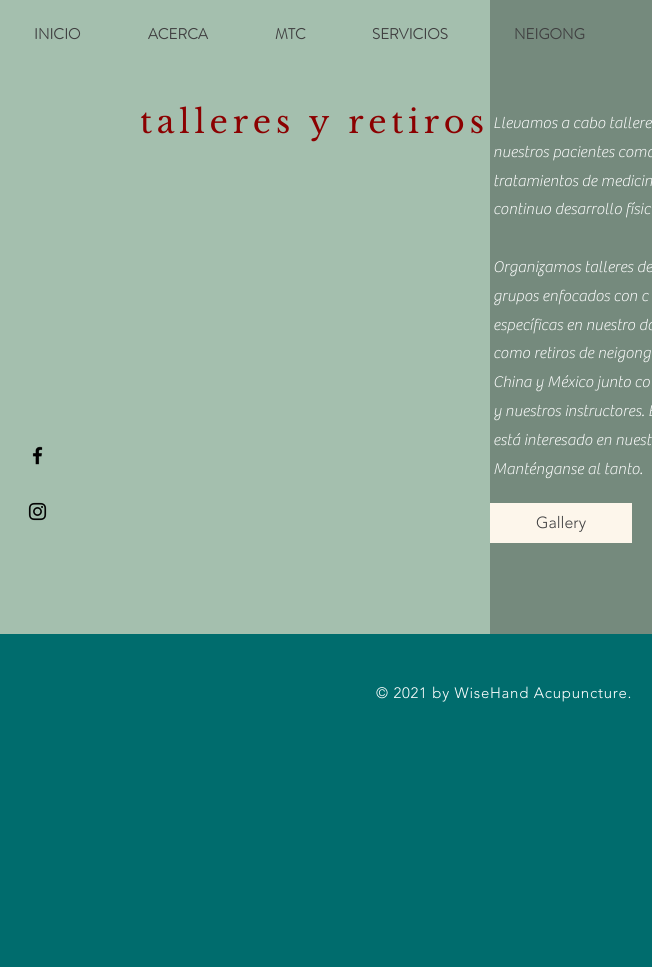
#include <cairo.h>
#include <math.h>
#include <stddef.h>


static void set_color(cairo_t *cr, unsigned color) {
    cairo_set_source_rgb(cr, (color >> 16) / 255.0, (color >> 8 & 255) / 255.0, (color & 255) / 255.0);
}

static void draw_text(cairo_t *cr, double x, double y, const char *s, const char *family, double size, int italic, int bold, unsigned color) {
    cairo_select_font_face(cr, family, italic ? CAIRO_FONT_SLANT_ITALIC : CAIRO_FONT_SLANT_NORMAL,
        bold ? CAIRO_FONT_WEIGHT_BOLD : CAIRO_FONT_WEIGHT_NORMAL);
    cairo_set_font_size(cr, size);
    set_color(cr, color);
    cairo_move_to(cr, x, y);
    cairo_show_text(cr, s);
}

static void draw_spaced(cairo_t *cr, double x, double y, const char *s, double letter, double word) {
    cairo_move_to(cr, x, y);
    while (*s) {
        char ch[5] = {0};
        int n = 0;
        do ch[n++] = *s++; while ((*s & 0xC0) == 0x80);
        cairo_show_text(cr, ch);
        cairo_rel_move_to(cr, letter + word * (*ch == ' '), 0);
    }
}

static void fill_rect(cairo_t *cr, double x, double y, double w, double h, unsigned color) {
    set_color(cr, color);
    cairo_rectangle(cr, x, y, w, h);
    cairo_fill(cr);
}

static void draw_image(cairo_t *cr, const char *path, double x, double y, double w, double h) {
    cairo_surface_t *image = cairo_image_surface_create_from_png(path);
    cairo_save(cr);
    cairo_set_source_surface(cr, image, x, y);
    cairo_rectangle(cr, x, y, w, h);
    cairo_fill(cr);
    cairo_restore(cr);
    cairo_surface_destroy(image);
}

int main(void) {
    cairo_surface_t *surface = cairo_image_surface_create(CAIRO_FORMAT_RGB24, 652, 967);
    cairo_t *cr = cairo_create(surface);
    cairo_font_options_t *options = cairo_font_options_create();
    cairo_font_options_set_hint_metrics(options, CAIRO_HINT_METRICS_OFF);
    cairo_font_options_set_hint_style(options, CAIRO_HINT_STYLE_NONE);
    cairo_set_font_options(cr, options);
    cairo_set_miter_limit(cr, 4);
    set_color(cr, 0x006C6D);
    cairo_paint(cr);
    fill_rect(cr, 0, 0, 490, 634, 0xA4BFAE);
    draw_text(cr, 34, 39, "INICIO", "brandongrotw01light", 15, 0, 1, 0x404041);
    draw_text(cr, 148, 39, "ACERCA", "brandongrotw01light", 15, 0, 1, 0x404041);
    draw_text(cr, 275, 39, "MTC", "brandongrotw01light", 15, 0, 1, 0x404041);
    draw_text(cr, 372, 39, "SERVICIOS", "brandongrotw01light", 15, 0, 1, 0x404041);
    fill_rect(cr, 490, 0, 162, 634, 0x758A7D);
    draw_text(cr, 514, 39, "NEIGONG", "brandongrotw01light", 15, 0, 1, 0x404041);
    draw_image(cr, "assets/img1.png", 32, 446, 11, 19);
    draw_image(cr, "assets/img2.png", 28, 502, 19, 19);
    cairo_select_font_face(cr, "Libre Baskerville", CAIRO_FONT_SLANT_NORMAL, CAIRO_FONT_WEIGHT_NORMAL);
    cairo_set_font_size(cr, 32);
    set_color(cr, 0x8B0000);
    draw_spaced(cr, 140, 133, "talleres y retiros", 4.75, 0);
    draw_text(cr, 493, 128, "Llevamos a cabo tallere", "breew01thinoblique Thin", 16, 0, 0, 0xFFFFFF);
    draw_text(cr, 493, 157, "nuestros pacientes como", "breew01thinoblique Thin", 16, 0, 0, 0xFFFFFF);
    draw_text(cr, 493, 186, "tratamientos de medicin", "breew01thinoblique Thin", 16, 0, 0, 0xFFFFFF);
    draw_text(cr, 493, 214, "continuo desarrollo físic", "breew01thinoblique Thin", 16, 0, 0, 0xFFFFFF);
    draw_text(cr, 493, 272, "Organizamos talleres de", "breew01thinoblique Thin", 16, 0, 0, 0xFFFFFF);
    draw_text(cr, 493, 301, "grupos enfocados con c", "breew01thinoblique Thin", 16, 0, 0, 0xFFFFFF);
    draw_text(cr, 493, 330, "específicas en nuestro do", "breew01thinoblique Thin", 16, 0, 0, 0xFFFFFF);
    draw_text(cr, 493, 358, "como retiros de neigong", "breew01thinoblique Thin", 16, 0, 0, 0xFFFFFF);
    draw_text(cr, 493, 387, "China y México junto co", "breew01thinoblique Thin", 16, 0, 0, 0xFFFFFF);
    draw_text(cr, 493, 416, "y nuestros instructores. E", "breew01thinoblique Thin", 16, 0, 0, 0xFFFFFF);
    draw_text(cr, 493, 445, "está interesado en nuest", "breew01thinoblique Thin", 16, 0, 0, 0xFFFFFF);
    draw_text(cr, 493, 474, "Manténganse al tanto.", "breew01thinoblique Thin", 16, 0, 0, 0xFFFFFF);
    fill_rect(cr, 490, 503, 142, 40, 0xFDF6EB);
    draw_text(cr, 536, 528, "Gallery", "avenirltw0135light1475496 Light", 16, 0, 0, 0x404041);
    cairo_set_font_size(cr, 15);
    set_color(cr, 0xFFFFFF);
    draw_spaced(cr, 376, 698, "© 2021 by WiseHand Acupuncture.", 0.75, 0);
    cairo_surface_write_to_png(surface, "output.png");
    cairo_font_options_destroy(options);
    cairo_destroy(cr);
    cairo_surface_destroy(surface);
    return 0;
}
